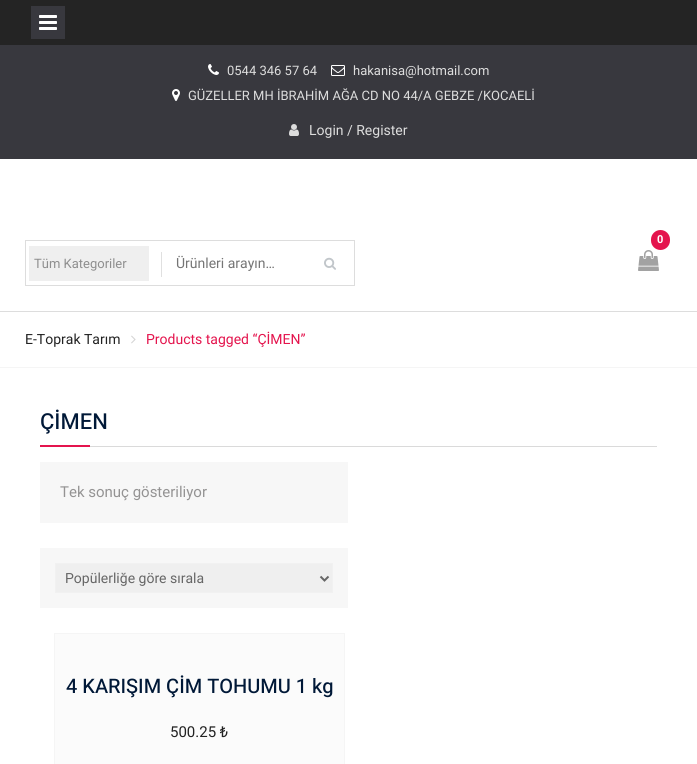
#include <cairo.h>
#include <math.h>
#include <stddef.h>


static void set_color(cairo_t *cr, unsigned color) {
    cairo_set_source_rgb(cr, (color >> 16) / 255.0, (color >> 8 & 255) / 255.0, (color & 255) / 255.0);
}

static void draw_text(cairo_t *cr, double x, double y, const char *s, const char *family, double size, int italic, int bold, unsigned color) {
    cairo_select_font_face(cr, family, italic ? CAIRO_FONT_SLANT_ITALIC : CAIRO_FONT_SLANT_NORMAL,
        bold ? CAIRO_FONT_WEIGHT_BOLD : CAIRO_FONT_WEIGHT_NORMAL);
    cairo_set_font_size(cr, size);
    set_color(cr, color);
    cairo_move_to(cr, x, y);
    cairo_show_text(cr, s);
}

static void fill_rect(cairo_t *cr, double x, double y, double w, double h, unsigned color) {
    set_color(cr, color);
    cairo_rectangle(cr, x, y, w, h);
    cairo_fill(cr);
}

static void rounded_rect(cairo_t *cr, double x, double y, double w, double h, double r) {
    cairo_new_sub_path(cr);
    cairo_arc(cr, x + w - r, y + h - r, r, 0, M_PI / 2);
    cairo_arc(cr, x + r, y + h - r, r, M_PI / 2, M_PI);
    cairo_arc(cr, x + r, y + r, r, M_PI, 1.5 * M_PI);
    cairo_arc(cr, x + w - r, y + r, r, 1.5 * M_PI, 2 * M_PI);
    cairo_close_path(cr);
}

static void draw_image(cairo_t *cr, const char *path, double x, double y, double w, double h) {
    cairo_surface_t *image = cairo_image_surface_create_from_png(path);
    cairo_save(cr);
    cairo_set_source_surface(cr, image, x, y);
    cairo_rectangle(cr, x, y, w, h);
    cairo_fill(cr);
    cairo_restore(cr);
    cairo_surface_destroy(image);
}

int main(void) {
    cairo_surface_t *surface = cairo_image_surface_create(CAIRO_FORMAT_RGB24, 697, 764);
    cairo_t *cr = cairo_create(surface);
    cairo_font_options_t *options = cairo_font_options_create();
    cairo_font_options_set_hint_metrics(options, CAIRO_HINT_METRICS_OFF);
    cairo_font_options_set_hint_style(options, CAIRO_HINT_STYLE_NONE);
    cairo_set_font_options(cr, options);
    cairo_set_miter_limit(cr, 4);
    set_color(cr, 0xFFFFFF);
    cairo_paint(cr);
    fill_rect(cr, 0, 0, 697, 45, 0x242424);
    fill_rect(cr, 31, 6, 34, 33, 0x38383E);
    draw_image(cr, "assets/img1.png", 39, 15, 18, 15);
    fill_rect(cr, 0, 45, 697, 114, 0x38383E);
    draw_image(cr, "assets/img2.png", 208, 64, 11, 11);
    draw_text(cr, 227, 75, "0544 346 57 64", "Roboto", 13, 0, 0, 0xDDDDDD);
    draw_image(cr, "assets/img3.png", 331, 65, 14, 11);
    draw_text(cr, 353, 75, "hakanisa@hotmail.com", "Roboto", 13, 0, 0, 0xDDDDDD);
    draw_image(cr, "assets/img4.png", 172, 89, 8, 12);
    draw_text(cr, 188, 100, "GÜZELLER MH İBRAHİM AĞA CD NO 44/A GEBZE /KOCAELİ", "Roboto", 13, 0, 0, 0xDDDDDD);
    draw_image(cr, "assets/img5.png", 289, 124, 10, 12);
    draw_text(cr, 309, 135, "Login / Register", "Roboto", 14, 0, 0, 0xDDDDDD);
    fill_rect(cr, 0, 311, 697, 1, 0xDDDDDD);
    set_color(cr, 0xE4144D);
    rounded_rect(cr, 651, 230, 19, 20, 9.5);
    cairo_fill(cr);
    draw_text(cr, 657, 243, "0", "Roboto", 11, 0, 1, 0xFFFFFF);
    draw_image(cr, "assets/img6.png", 638, 250, 21, 21);
    cairo_rectangle(cr, 25.5, 240.5, 329, 45);
    set_color(cr, 0xDDDDDD);
    cairo_set_line_width(cr, 1);
    cairo_stroke(cr);
    fill_rect(cr, 29, 246, 120, 35, 0xEFEFEF);
    draw_text(cr, 34, 268, "Tüm Kategoriler", "Roboto", 13, 0, 0, 0x8E8E8E);
    fill_rect(cr, 161, 252, 1, 25, 0xE0E0E0);
    draw_text(cr, 176, 268, "Ürünleri arayın…", "Roboto", 14, 0, 0, 0x757575);
    draw_image(cr, "assets/img7.png", 324, 257, 12, 13);
    fill_rect(cr, 0, 367, 697, 1, 0xF5F5F5);
    draw_text(cr, 25, 344, "E-Toprak Tarım", "Roboto", 14, 0, 0, 0x222222);
    draw_image(cr, "assets/img8.png", 131, 335, 5, 9);
    draw_text(cr, 146, 344, "Products tagged “ÇİMEN”", "Roboto", 14, 0, 0, 0xE4144D);
    fill_rect(cr, 90, 446, 567, 1, 0xDADADA);
    draw_text(cr, 40, 429, "ÇİMEN", "Heebo Medium", 22, 0, 0, 0x001837);
    fill_rect(cr, 40, 445, 50, 2, 0xE4144D);
    fill_rect(cr, 40, 462, 308, 61, 0xF7F7F7);
    draw_text(cr, 60, 497, "Tek sonuç gösteriliyor", "Roboto", 15, 0, 0, 0x949393);
    fill_rect(cr, 40, 548, 308, 60, 0xF7F7F7);
    set_color(cr, 0xEFEFEF);
    cairo_rectangle(cr, 55.5, 563.5, 277, 29);
    cairo_fill_preserve(cr);
    set_color(cr, 0xF1F1F1);
    cairo_stroke(cr);
    cairo_new_path(cr);
    cairo_move_to(cr, 320.5, 576.5);
    cairo_line_to(cr, 324.5, 580.5);
    cairo_line_to(cr, 328.5, 576.5);
    set_color(cr, 0x666666);
    cairo_set_line_width(cr, 2);
    cairo_stroke(cr);
    draw_text(cr, 65, 583, "Popülerliğe göre sırala", "Roboto", 14, 0, 0, 0x666666);
    set_color(cr, 0xFBFBFB);
    cairo_rectangle(cr, 54.5, 633.5, 290, 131);
    cairo_fill_preserve(cr);
    set_color(cr, 0xF5F5F5);
    cairo_set_line_width(cr, 1);
    cairo_stroke(cr);
    draw_text(cr, 66, 693, "4 KARIŞIM ÇİM TOHUMU 1 kg", "Heebo Medium", 20, 0, 0, 0x001837);
    draw_text(cr, 170, 737, "500.25 ₺", "Roboto", 15, 0, 0, 0x222222);
    cairo_surface_write_to_png(surface, "output.png");
    cairo_font_options_destroy(options);
    cairo_destroy(cr);
    cairo_surface_destroy(surface);
    return 0;
}
